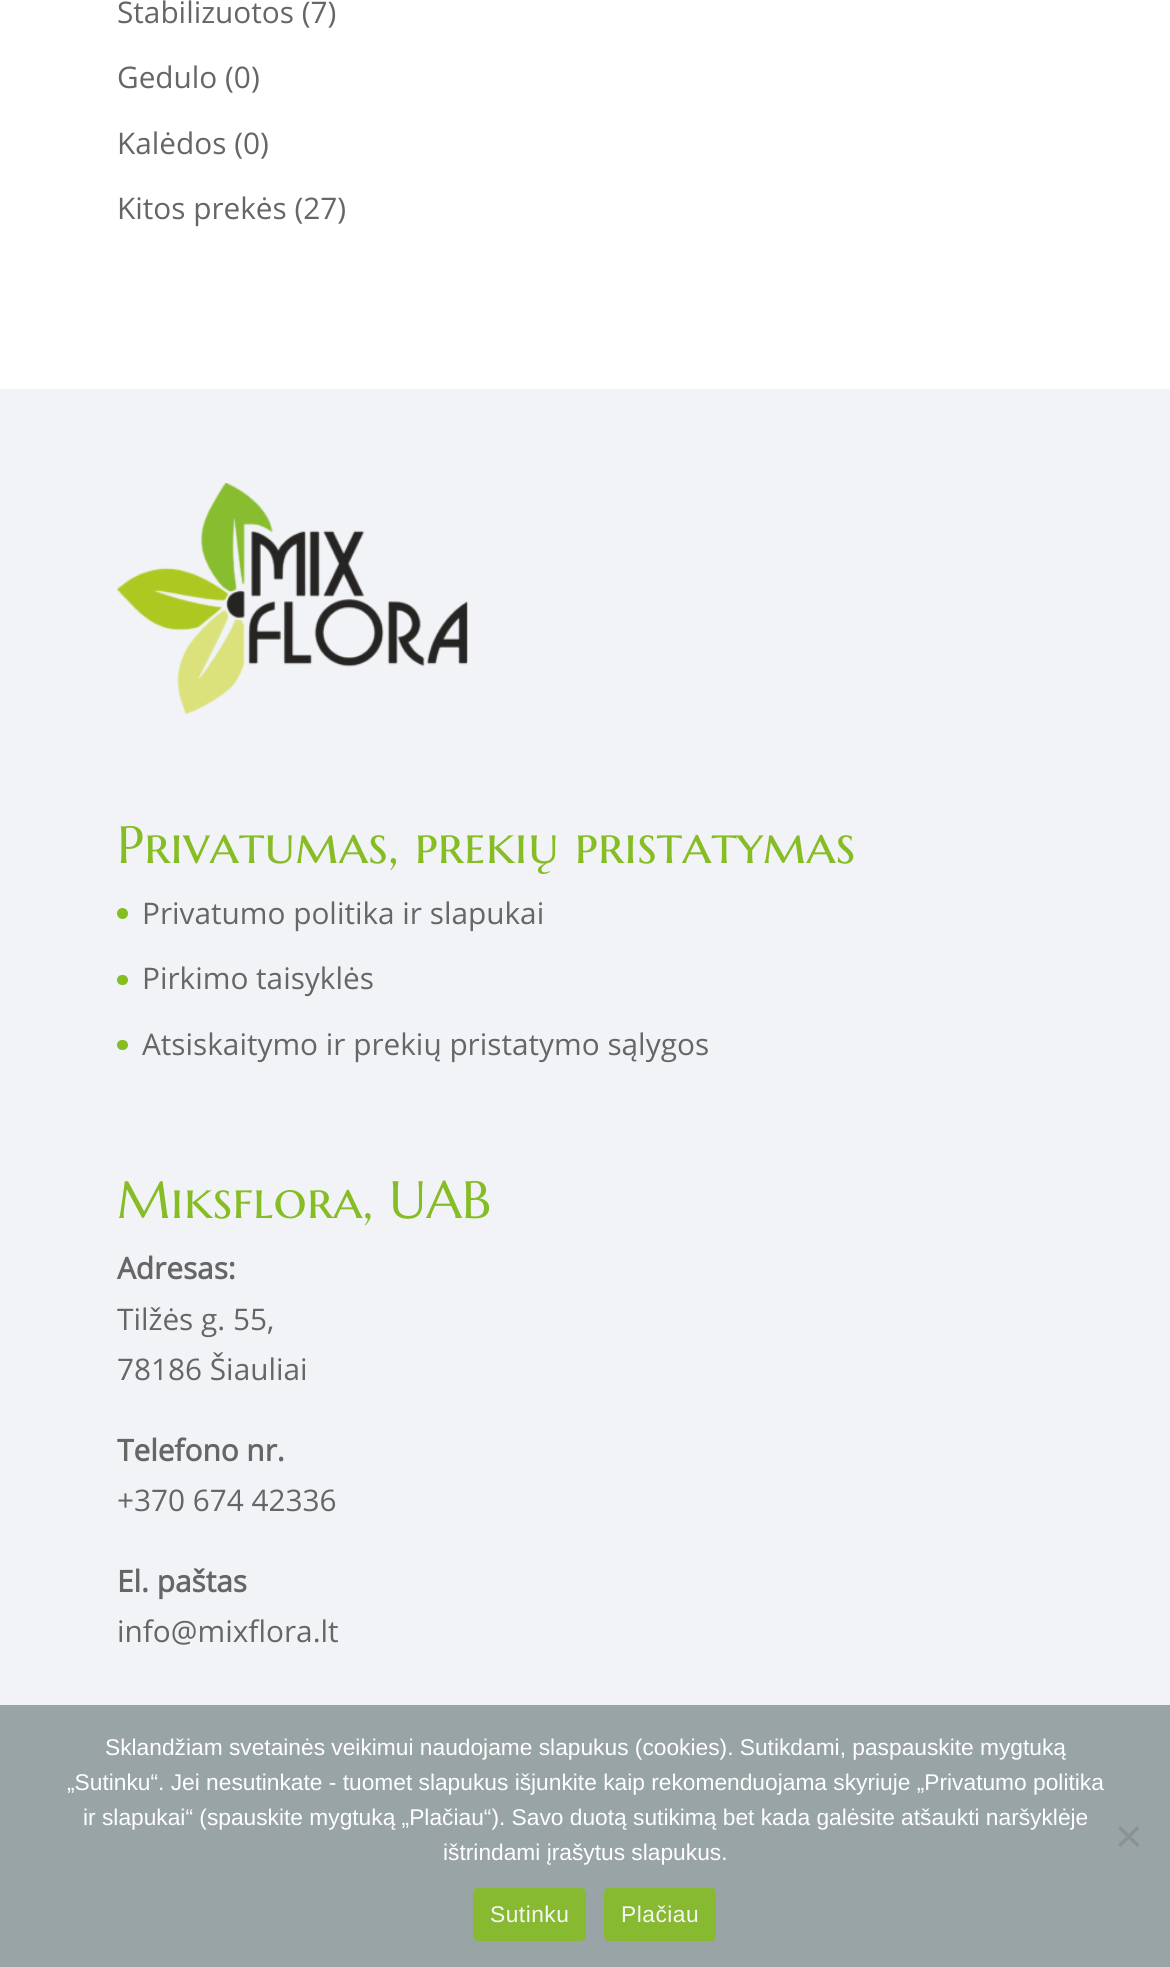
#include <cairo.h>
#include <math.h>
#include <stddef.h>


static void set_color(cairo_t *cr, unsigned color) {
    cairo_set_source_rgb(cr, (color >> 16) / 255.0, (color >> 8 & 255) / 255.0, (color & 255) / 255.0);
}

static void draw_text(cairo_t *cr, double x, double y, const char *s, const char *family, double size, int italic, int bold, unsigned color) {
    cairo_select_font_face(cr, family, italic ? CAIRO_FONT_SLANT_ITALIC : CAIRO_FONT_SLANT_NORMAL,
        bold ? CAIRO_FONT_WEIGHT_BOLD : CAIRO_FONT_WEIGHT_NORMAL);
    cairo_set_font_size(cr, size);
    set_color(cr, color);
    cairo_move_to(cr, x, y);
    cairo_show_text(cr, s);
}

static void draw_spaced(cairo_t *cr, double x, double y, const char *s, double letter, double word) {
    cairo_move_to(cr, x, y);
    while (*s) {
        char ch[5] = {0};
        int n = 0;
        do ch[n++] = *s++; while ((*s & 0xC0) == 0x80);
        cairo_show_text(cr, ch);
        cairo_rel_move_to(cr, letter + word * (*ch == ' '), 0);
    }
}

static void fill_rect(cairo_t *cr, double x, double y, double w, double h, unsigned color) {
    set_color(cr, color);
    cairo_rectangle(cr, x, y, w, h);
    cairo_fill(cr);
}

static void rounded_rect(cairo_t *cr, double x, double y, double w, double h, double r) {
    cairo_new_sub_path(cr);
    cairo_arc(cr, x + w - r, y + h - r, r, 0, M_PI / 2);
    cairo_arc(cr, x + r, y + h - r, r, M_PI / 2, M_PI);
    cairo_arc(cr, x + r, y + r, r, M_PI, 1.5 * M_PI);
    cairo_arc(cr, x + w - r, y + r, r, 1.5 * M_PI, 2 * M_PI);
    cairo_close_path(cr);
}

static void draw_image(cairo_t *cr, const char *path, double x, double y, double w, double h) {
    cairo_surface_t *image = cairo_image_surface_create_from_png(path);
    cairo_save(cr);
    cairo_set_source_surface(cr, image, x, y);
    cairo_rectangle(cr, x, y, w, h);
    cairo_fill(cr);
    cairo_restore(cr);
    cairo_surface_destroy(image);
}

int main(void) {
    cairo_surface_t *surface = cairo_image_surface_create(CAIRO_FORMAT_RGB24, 1170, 1967);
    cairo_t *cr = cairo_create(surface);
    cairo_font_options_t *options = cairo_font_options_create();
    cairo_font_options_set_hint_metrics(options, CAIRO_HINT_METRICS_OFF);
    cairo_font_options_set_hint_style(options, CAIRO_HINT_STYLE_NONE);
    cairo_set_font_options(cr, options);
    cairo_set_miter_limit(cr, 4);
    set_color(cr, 0xFFFFFF);
    cairo_paint(cr);
    draw_text(cr, 117, 23, "Stabilizuotos (7)", "Open Sans", 29.75, 0, 0, 0x666666);
    draw_text(cr, 117, 88, "Gedulo (0)", "Open Sans", 29.75, 0, 0, 0x666666);
    draw_text(cr, 117, 154, "Kalėdos (0)", "Open Sans", 29.75, 0, 0, 0x666666);
    draw_text(cr, 117, 219, "Kitos prekės (27)", "Open Sans", 29.75, 0, 0, 0x666666);
    fill_rect(cr, 0, 389, 1170, 1578, 0xF1F3F7);
    draw_image(cr, "assets/img1.png", 117, 483, 351, 231);
    draw_text(cr, 117, 863, "Privatumas, prekių pristatymas", "Marcellus SC", 52.5, 0, 0, 0x86BC24);
    cairo_new_path(cr);
    cairo_arc(cr, 122.5, 913.5, 5.5, 0, 2 * M_PI);
    cairo_fill(cr);
    draw_text(cr, 142, 924, "Privatumo politika ir slapukai", "Open Sans", 29.75, 0, 0, 0x666666);
    set_color(cr, 0x86BC24);
    rounded_rect(cr, 117, 975, 11, 10, 5);
    cairo_fill(cr);
    draw_text(cr, 142, 989, "Pirkimo taisyklės", "Open Sans", 29.75, 0, 0, 0x666666);
    set_color(cr, 0x86BC24);
    rounded_rect(cr, 117, 1040, 11, 10, 5);
    cairo_fill(cr);
    draw_text(cr, 142, 1055, "Atsiskaitymo ir prekių pristatymo sąlygos", "Open Sans", 29.75, 0, 0, 0x666666);
    draw_text(cr, 117, 1218, "Miksflora, UAB", "Marcellus SC", 52.5, 0, 0, 0x86BC24);
    draw_text(cr, 117, 1279, "Adresas:", "Open Sans", 29.75, 0, 1, 0x666666);
    draw_text(cr, 117, 1330, "Tilžės g. 55,", "Open Sans", 29.75, 0, 0, 0x666666);
    draw_text(cr, 117, 1380, "78186 Šiauliai", "Open Sans", 29.75, 0, 0, 0x666666);
    draw_text(cr, 117, 1461, "Telefono nr.", "Open Sans", 29.75, 0, 1, 0x666666);
    draw_text(cr, 117, 1511, "+370 674 42336", "Open Sans", 29.75, 0, 0, 0x666666);
    draw_text(cr, 117, 1592, "El. paštas", "Open Sans", 29.75, 0, 1, 0x666666);
    draw_text(cr, 117, 1642, "info@mixflora.lt", "Open Sans", 29.75, 0, 0, 0x666666);
    cairo_set_source_rgba(cr, 0.561, 0.608, 0.62, 0.9);
    cairo_rectangle(cr, 0, 1705, 1170, 262);
    cairo_fill(cr);
    draw_text(cr, 105, 1755, "Sklandžiam svetainės veikimui naudojame slapukus (cookies). Sutikdami, paspauskite mygtuką", "Liberation Sans", 22.75, 0, 0, 0xFFFFFF);
    draw_text(cr, 67, 1790, "„Sutinku“. Jei nesutinkate - tuomet slapukus išjunkite kaip rekomenduojama skyriuje „Privatumo politika", "Liberation Sans", 22.75, 0, 0, 0xFFFFFF);
    draw_text(cr, 83, 1825, "ir slapukai“ (spauskite mygtuką „Plačiau“). Savo duotą sutikimą bet kada galėsite atšaukti naršyklėje", "Liberation Sans", 22.75, 0, 0, 0xFFFFFF);
    draw_text(cr, 443, 1860, "ištrindami įrašytus slapukus.", "Liberation Sans", 22.75, 0, 0, 0xFFFFFF);
    set_color(cr, 0x8C9293);
    cairo_new_path(cr);
    cairo_move_to(cr, 1137, 1826);
    cairo_line_to(cr, 1139.5, 1828.5);
    cairo_line_to(cr, 1120.5, 1847);
    cairo_line_to(cr, 1118, 1844.5);
    cairo_close_path(cr);
    cairo_fill(cr);
    cairo_new_path(cr);
    cairo_move_to(cr, 1118, 1828.5);
    cairo_line_to(cr, 1120.5, 1826);
    cairo_line_to(cr, 1139.5, 1844.5);
    cairo_line_to(cr, 1137, 1847);
    cairo_close_path(cr);
    cairo_fill(cr);
    set_color(cr, 0x88BA31);
    rounded_rect(cr, 473, 1888, 113, 53, 5);
    cairo_fill(cr);
    set_color(cr, 0xF5F6F6);
    draw_spaced(cr, 490, 1922, "Sutinku", 0.5, 0);
    set_color(cr, 0x88BA31);
    rounded_rect(cr, 604, 1888, 112, 53, 5);
    cairo_fill(cr);
    set_color(cr, 0xF5F6F6);
    draw_spaced(cr, 621, 1922, "Plačiau", 0.5, 0);
    cairo_surface_write_to_png(surface, "output.png");
    cairo_font_options_destroy(options);
    cairo_destroy(cr);
    cairo_surface_destroy(surface);
    return 0;
}
